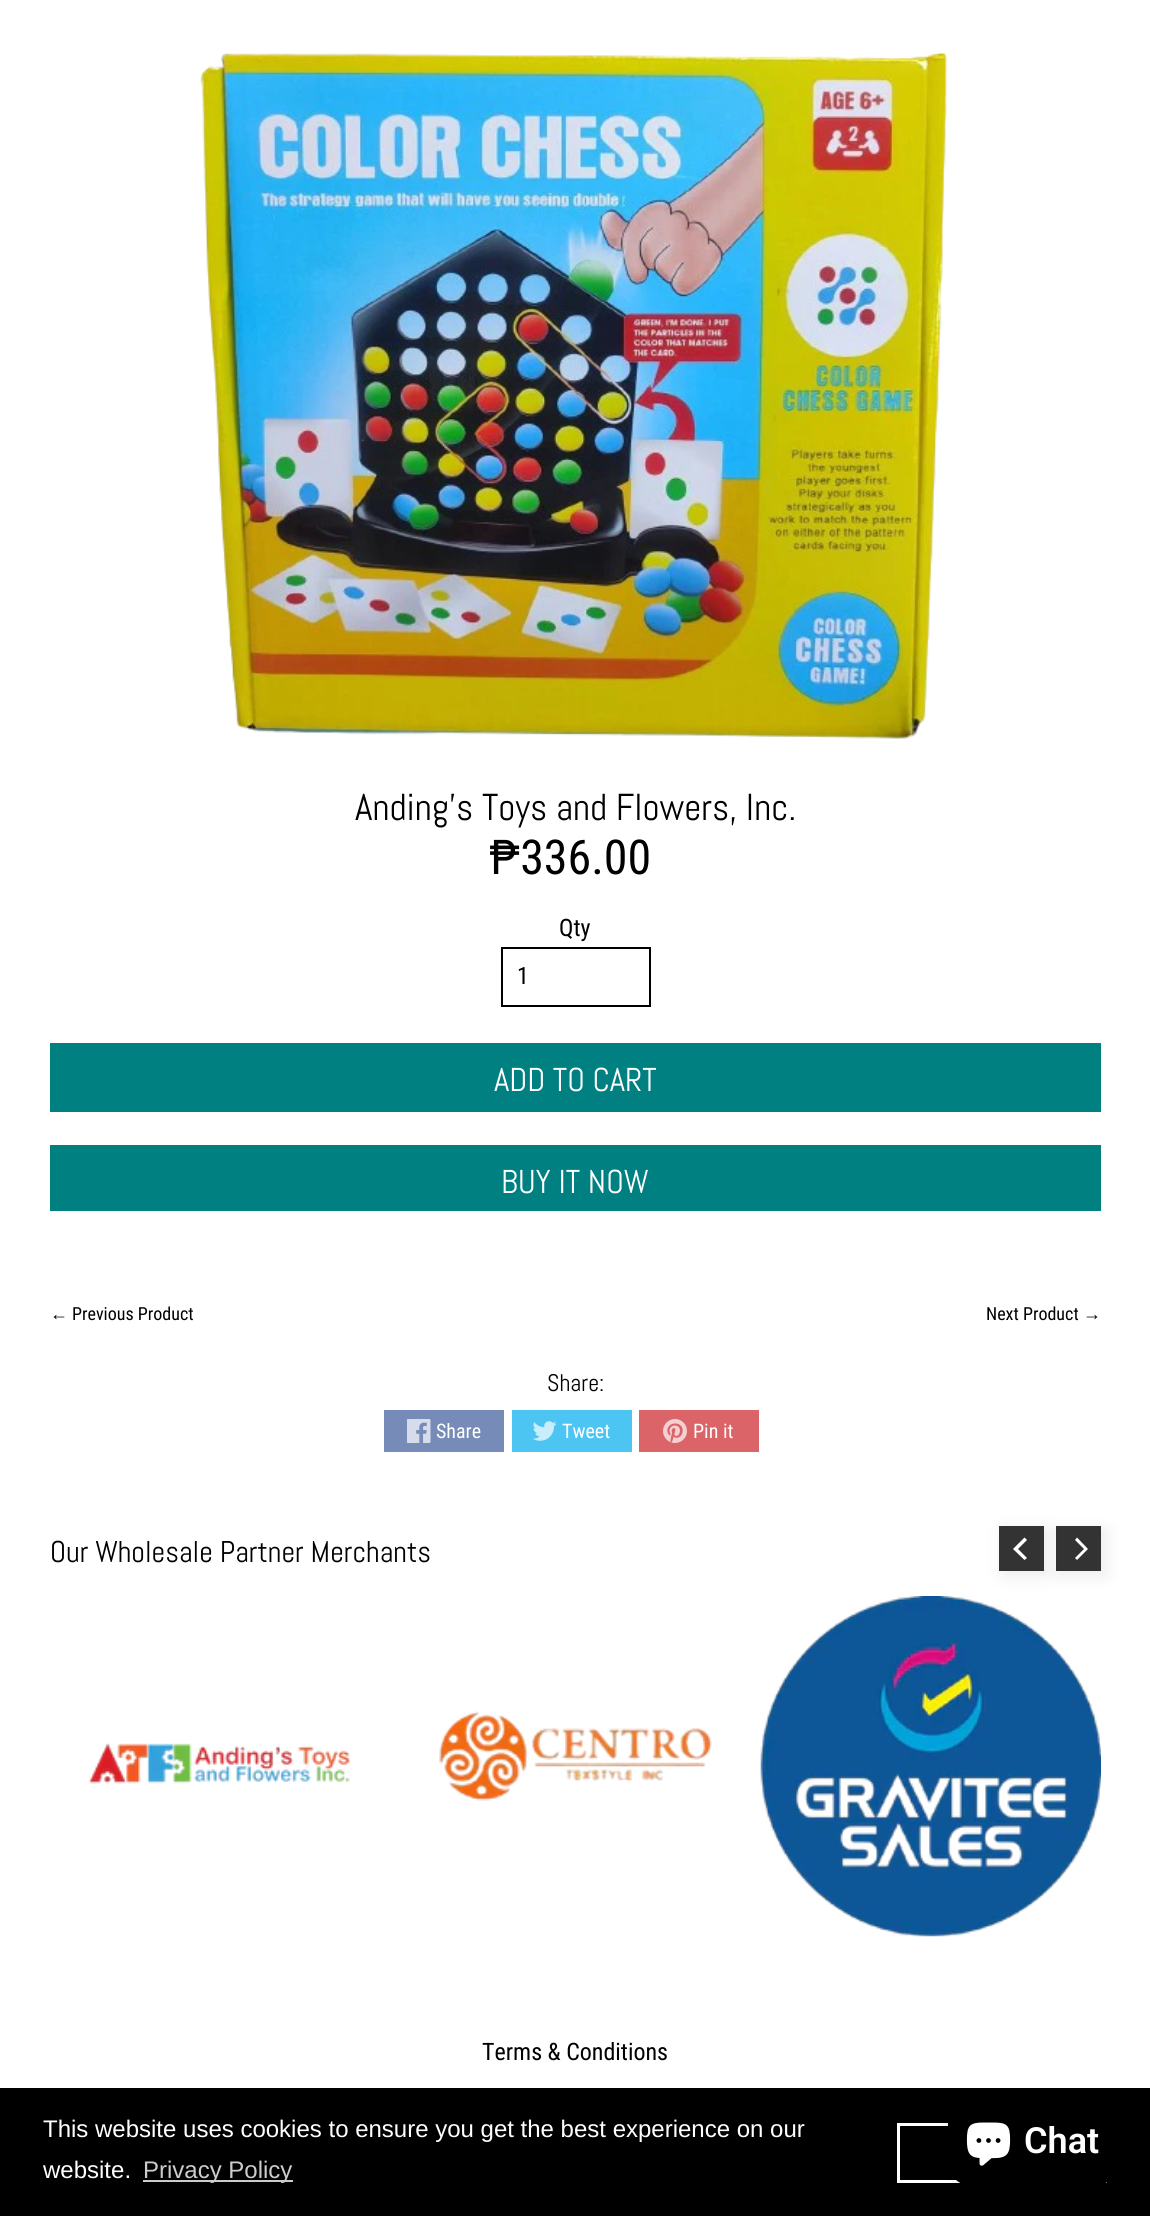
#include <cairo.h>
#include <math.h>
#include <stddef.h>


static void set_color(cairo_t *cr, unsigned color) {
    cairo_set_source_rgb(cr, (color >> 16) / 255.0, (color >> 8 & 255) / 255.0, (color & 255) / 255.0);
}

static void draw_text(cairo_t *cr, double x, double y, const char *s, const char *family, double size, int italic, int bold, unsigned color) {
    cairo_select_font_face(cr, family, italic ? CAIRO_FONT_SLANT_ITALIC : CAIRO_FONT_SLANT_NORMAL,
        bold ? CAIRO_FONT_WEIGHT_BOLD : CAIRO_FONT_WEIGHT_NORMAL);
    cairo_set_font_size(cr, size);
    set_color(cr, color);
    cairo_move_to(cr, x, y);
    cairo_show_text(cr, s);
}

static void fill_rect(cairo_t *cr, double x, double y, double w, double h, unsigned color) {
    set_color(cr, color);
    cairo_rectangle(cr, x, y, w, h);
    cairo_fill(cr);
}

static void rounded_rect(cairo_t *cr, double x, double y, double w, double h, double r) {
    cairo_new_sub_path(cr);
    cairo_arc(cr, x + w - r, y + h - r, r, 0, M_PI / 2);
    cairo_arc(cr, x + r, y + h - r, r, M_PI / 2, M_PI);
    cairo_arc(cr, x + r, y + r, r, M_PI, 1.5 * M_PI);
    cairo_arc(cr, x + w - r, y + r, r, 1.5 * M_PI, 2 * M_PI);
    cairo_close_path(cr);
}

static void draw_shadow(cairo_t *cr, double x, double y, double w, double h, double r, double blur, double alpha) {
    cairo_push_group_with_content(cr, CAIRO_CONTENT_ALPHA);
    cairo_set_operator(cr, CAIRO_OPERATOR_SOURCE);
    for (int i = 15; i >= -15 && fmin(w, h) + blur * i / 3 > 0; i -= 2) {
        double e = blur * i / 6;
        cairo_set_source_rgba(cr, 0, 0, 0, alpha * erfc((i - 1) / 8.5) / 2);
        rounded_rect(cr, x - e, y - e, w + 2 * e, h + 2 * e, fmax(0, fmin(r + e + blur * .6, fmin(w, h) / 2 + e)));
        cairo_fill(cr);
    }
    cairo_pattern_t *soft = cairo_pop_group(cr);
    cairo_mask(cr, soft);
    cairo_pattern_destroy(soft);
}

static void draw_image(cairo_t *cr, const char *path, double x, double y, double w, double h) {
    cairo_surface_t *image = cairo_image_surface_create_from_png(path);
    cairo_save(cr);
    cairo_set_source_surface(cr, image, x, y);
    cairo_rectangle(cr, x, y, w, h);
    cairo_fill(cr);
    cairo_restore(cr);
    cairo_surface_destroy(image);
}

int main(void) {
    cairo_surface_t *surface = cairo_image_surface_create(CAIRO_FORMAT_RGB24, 1150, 2216);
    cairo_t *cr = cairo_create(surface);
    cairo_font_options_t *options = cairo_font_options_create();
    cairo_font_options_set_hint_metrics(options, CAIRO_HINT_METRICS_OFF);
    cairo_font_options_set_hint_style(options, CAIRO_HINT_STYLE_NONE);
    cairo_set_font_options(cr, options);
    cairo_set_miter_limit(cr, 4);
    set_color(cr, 0xFFFFFF);
    cairo_paint(cr);
    draw_image(cr, "assets/img1.png", 200, 52, 747, 687);
    draw_text(cr, 355, 820, "Anding's Toys and Flowers, Inc.", "Abel", 37.5, 0, 0, 0x000000);
    draw_text(cr, 489, 874, "₱336.00", "Roboto Condensed", 48, 0, 0, 0x000000);
    draw_text(cr, 559, 936, "Qty", "Roboto Condensed", 24, 0, 0, 0x000000);
    cairo_rectangle(cr, 502, 948, 148, 58);
    cairo_stroke(cr);
    draw_text(cr, 517, 984, "1", "Roboto Condensed", 24, 0, 0, 0x000000);
    fill_rect(cr, 50, 1043, 1051, 69, 0x008080);
    draw_text(cr, 494, 1091, "ADD TO CART", "Abel", 33, 0, 0, 0xFFFFFF);
    fill_rect(cr, 50, 1145, 1051, 66, 0x008080);
    draw_text(cr, 501, 1193, "BUY IT NOW", "Abel", 33, 0, 0, 0xFFFFFF);
    draw_text(cr, 50, 1320, "←", "Liberation Sans", 18, 0, 0, 0x000000);
    draw_text(cr, 72, 1320, "Previous Product", "Roboto Condensed", 18, 0, 0, 0x000000);
    draw_text(cr, 986, 1320, "Next Product", "Roboto Condensed", 18, 0, 0, 0x000000);
    draw_text(cr, 1083, 1320, "→", "Liberation Sans", 18, 0, 0, 0x000000);
    draw_text(cr, 547, 1391, "Share:", "Abel", 24, 0, 0, 0x000000);
    fill_rect(cr, 384, 1410, 120, 42, 0x768BB7);
    draw_image(cr, "assets/img2.png", 407, 1419, 24, 24);
    draw_text(cr, 436, 1438, "Share", "Roboto Condensed", 20, 0, 0, 0xFFFFFF);
    fill_rect(cr, 512, 1410, 120, 42, 0x4DC5F2);
    draw_image(cr, "assets/img3.png", 533, 1421, 24, 20);
    draw_text(cr, 562, 1438, "Tweet", "Roboto Condensed", 20, 0, 0, 0xFFFFFF);
    fill_rect(cr, 639, 1410, 120, 42, 0xDB6468);
    draw_image(cr, "assets/img4.png", 663, 1419, 24, 24);
    draw_text(cr, 693, 1438, "Pin it", "Roboto Condensed", 20, 0, 0, 0xFFFFFF);
    draw_image(cr, "assets/img7.png", 760, 1596, 341, 341);
    set_color(cr, 0x333333);
    draw_shadow(cr, 1004, 1530, 45, 45, 0, 9, 0.1);
    fill_rect(cr, 999, 1526, 45, 45, 0x333333);
    set_color(cr, 0xFFFFFF);
    cairo_new_path(cr);
    cairo_move_to(cr, 1013, 1549);
    cairo_line_to(cr, 1024.5, 1560);
    cairo_line_to(cr, 1027, 1558);
    cairo_line_to(cr, 1018, 1549);
    cairo_line_to(cr, 1027, 1540);
    cairo_line_to(cr, 1024.5, 1537.5);
    cairo_close_path(cr);
    cairo_fill(cr);
    cairo_save(cr);
    cairo_set_fill_rule(cr, CAIRO_FILL_RULE_EVEN_ODD);
    cairo_new_path(cr);
    cairo_move_to(cr, 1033, 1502);
    cairo_line_to(cr, 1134, 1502);
    cairo_line_to(cr, 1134, 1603);
    cairo_line_to(cr, 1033, 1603);
    cairo_close_path(cr);
    cairo_move_to(cr, 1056, 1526);
    cairo_line_to(cr, 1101, 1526);
    cairo_line_to(cr, 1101, 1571);
    cairo_line_to(cr, 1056, 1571);
    cairo_close_path(cr);
    cairo_clip(cr);
    set_color(cr, 0x000000);
    draw_shadow(cr, 1061, 1530, 45, 45, 0, 9, 0.08);
    cairo_restore(cr);
    cairo_set_source_rgba(cr, 0, 0, 0, 0.8);
    cairo_rectangle(cr, 1056, 1526, 45, 45);
    cairo_fill(cr);
    set_color(cr, 0xFFFFFF);
    cairo_new_path(cr);
    cairo_move_to(cr, 1088, 1549);
    cairo_line_to(cr, 1077, 1537.5);
    cairo_line_to(cr, 1075, 1540);
    cairo_line_to(cr, 1084, 1549);
    cairo_line_to(cr, 1075, 1558);
    cairo_line_to(cr, 1077, 1560);
    cairo_close_path(cr);
    cairo_fill(cr);
    draw_image(cr, "assets/img5.png", 88, 1743, 262, 41);
    draw_image(cr, "assets/img6.png", 439, 1711, 273, 90);
    draw_text(cr, 50, 1562, "Our Wholesale Partner Merchants", "Abel", 30, 0, 0, 0x000000);
    draw_text(cr, 482, 2060, "Terms & Conditions", "Roboto Condensed", 24, 0, 0, 0x000000);
    fill_rect(cr, 0, 2088, 1150, 128, 0x000000);
    draw_text(cr, 43, 2137, "This website uses cookies to ensure you get the best experience on our", "Liberation Sans", 24, 0, 0, 0xFFFFFF);
    draw_text(cr, 43, 2178, "website.", "Liberation Sans", 24, 0, 0, 0xFFFFFF);
    fill_rect(cr, 143, 2180, 150, 2, 0xCCCCCC);
    draw_text(cr, 143, 2178, "Privacy Policy", "Liberation Sans", 24, 0, 0, 0xCCCCCC);
    cairo_rectangle(cr, 898.5, 2124.5, 207, 57);
    set_color(cr, 0xFFFFFF);
    cairo_set_line_width(cr, 3);
    cairo_stroke(cr);
    set_color(cr, 0x000000);
    draw_shadow(cr, 948, 2096, 170, 90, 24, 4, 0.15);
    set_color(cr, 0x000000);
    rounded_rect(cr, 948, 2096, 170, 90, 24);
    cairo_fill(cr);
    draw_image(cr, "assets/img8.png", 966, 2122, 45, 44);
    draw_text(cr, 1024, 2153, "Chat", "Roboto SemiBold", 36, 0, 0, 0xFFFFFF);
    cairo_surface_write_to_png(surface, "output.png");
    cairo_font_options_destroy(options);
    cairo_destroy(cr);
    cairo_surface_destroy(surface);
    return 0;
}
